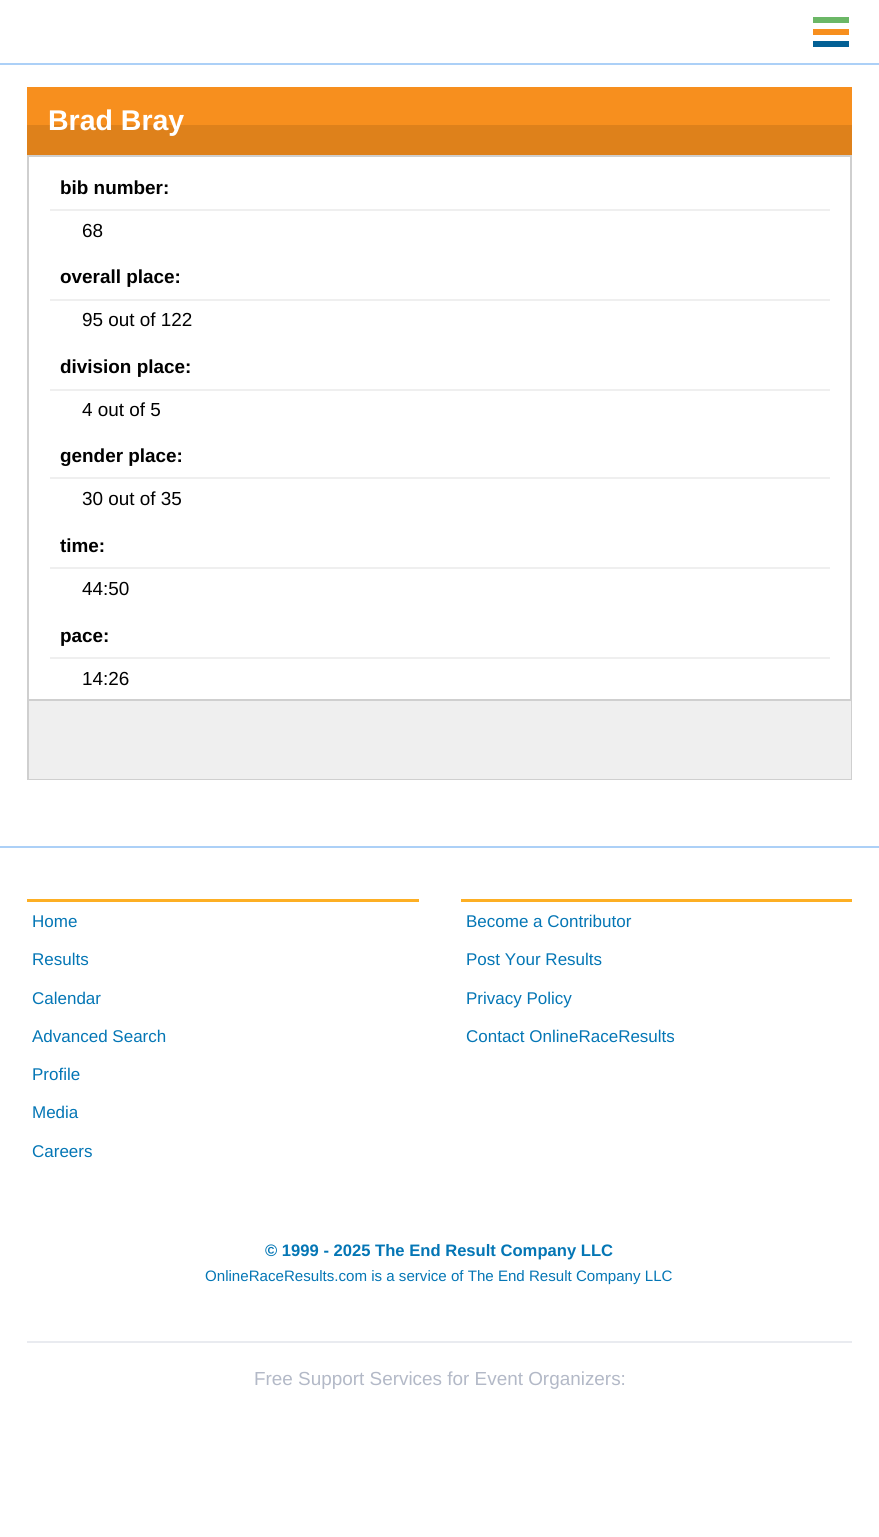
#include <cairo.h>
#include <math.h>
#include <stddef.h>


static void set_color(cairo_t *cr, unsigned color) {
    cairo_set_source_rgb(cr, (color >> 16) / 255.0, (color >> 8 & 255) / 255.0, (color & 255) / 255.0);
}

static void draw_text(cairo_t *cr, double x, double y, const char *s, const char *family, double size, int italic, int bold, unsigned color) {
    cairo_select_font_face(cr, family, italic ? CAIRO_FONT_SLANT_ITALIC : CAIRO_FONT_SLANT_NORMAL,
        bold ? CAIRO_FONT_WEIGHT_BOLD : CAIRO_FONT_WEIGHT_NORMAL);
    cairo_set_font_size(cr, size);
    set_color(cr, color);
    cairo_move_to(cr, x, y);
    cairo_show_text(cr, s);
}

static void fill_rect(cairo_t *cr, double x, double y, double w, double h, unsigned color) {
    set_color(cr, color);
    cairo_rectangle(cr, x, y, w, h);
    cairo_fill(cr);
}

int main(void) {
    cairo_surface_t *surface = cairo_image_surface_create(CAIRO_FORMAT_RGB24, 879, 1537);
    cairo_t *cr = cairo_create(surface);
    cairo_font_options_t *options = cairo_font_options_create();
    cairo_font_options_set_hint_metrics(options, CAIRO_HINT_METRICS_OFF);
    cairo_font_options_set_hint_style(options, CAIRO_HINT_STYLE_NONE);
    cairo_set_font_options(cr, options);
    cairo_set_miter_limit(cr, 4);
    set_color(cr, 0xFFFFFF);
    cairo_paint(cr);
    fill_rect(cr, 0, 63, 879, 2, 0xACD0F7);
    fill_rect(cr, 813, 17, 36, 6, 0x6BB766);
    fill_rect(cr, 813, 29, 36, 6, 0xF78F1E);
    fill_rect(cr, 813, 41, 36, 6, 0x036095);
    fill_rect(cr, 27, 87, 825, 38, 0xF78F1E);
    fill_rect(cr, 27, 125, 825, 30, 0xDE811B);
    draw_text(cr, 48, 130, "Brad Bray", "Liberation Sans", 28.5, 0, 1, 0xFFFFFF);
    cairo_rectangle(cr, 28, 156, 823, 544);
    set_color(cr, 0xCFCFCF);
    cairo_stroke(cr);
    fill_rect(cr, 50, 209, 780, 2, 0xEFEFEF);
    draw_text(cr, 60, 194, "bib number:", "Liberation Sans", 18.9, 0, 1, 0x000000);
    draw_text(cr, 82, 237, "68", "Liberation Sans", 18.9, 0, 0, 0x000000);
    fill_rect(cr, 50, 299, 780, 2, 0xEFEFEF);
    draw_text(cr, 60, 283, "overall place:", "Liberation Sans", 18.9, 0, 1, 0x000000);
    draw_text(cr, 82, 326, "95 out of 122", "Liberation Sans", 18.9, 0, 0, 0x000000);
    fill_rect(cr, 50, 389, 780, 2, 0xEFEFEF);
    draw_text(cr, 60, 373, "division place:", "Liberation Sans", 18.9, 0, 1, 0x000000);
    draw_text(cr, 82, 416, "4 out of 5", "Liberation Sans", 18.9, 0, 0, 0x000000);
    fill_rect(cr, 50, 477, 780, 2, 0xEFEFEF);
    draw_text(cr, 60, 462, "gender place:", "Liberation Sans", 18.9, 0, 1, 0x000000);
    draw_text(cr, 82, 505, "30 out of 35", "Liberation Sans", 18.9, 0, 0, 0x000000);
    fill_rect(cr, 50, 567, 780, 2, 0xEFEFEF);
    draw_text(cr, 60, 552, "time:", "Liberation Sans", 18.9, 0, 1, 0x000000);
    draw_text(cr, 82, 595, "44:50", "Liberation Sans", 18.9, 0, 0, 0x000000);
    fill_rect(cr, 50, 657, 780, 2, 0xEFEFEF);
    draw_text(cr, 60, 642, "pace:", "Liberation Sans", 18.9, 0, 1, 0x000000);
    draw_text(cr, 82, 685, "14:26", "Liberation Sans", 18.9, 0, 0, 0x000000);
    fill_rect(cr, 29, 701, 822, 78, 0xEFEFEF);
    fill_rect(cr, 851, 701, 1, 79, 0xCFCFCF);
    fill_rect(cr, 27, 779, 825, 1, 0xCFCFCF);
    fill_rect(cr, 27, 701, 2, 79, 0xCFCFCF);
    fill_rect(cr, 0, 846, 879, 2, 0xACD0F7);
    fill_rect(cr, 27, 899, 392, 3, 0xFDAF24);
    draw_text(cr, 32, 927, "Home", "Liberation Sans", 17, 0, 0, 0x0476B5);
    draw_text(cr, 32, 965, "Results", "Liberation Sans", 17, 0, 0, 0x0476B5);
    draw_text(cr, 32, 1004, "Calendar", "Liberation Sans", 17, 0, 0, 0x0476B5);
    draw_text(cr, 32, 1042, "Advanced Search", "Liberation Sans", 17, 0, 0, 0x0476B5);
    draw_text(cr, 32, 1080, "Profile", "Liberation Sans", 17, 0, 0, 0x0476B5);
    draw_text(cr, 32, 1118, "Media", "Liberation Sans", 17, 0, 0, 0x0476B5);
    draw_text(cr, 32, 1157, "Careers", "Liberation Sans", 17, 0, 0, 0x0476B5);
    fill_rect(cr, 461, 899, 391, 3, 0xFDAF24);
    draw_text(cr, 466, 927, "Become a Contributor", "Liberation Sans", 17, 0, 0, 0x0476B5);
    draw_text(cr, 466, 965, "Post Your Results", "Liberation Sans", 17, 0, 0, 0x0476B5);
    draw_text(cr, 466, 1004, "Privacy Policy", "Liberation Sans", 17, 0, 0, 0x0476B5);
    draw_text(cr, 466, 1042, "Contact OnlineRaceResults", "Liberation Sans", 17, 0, 0, 0x0476B5);
    draw_text(cr, 265, 1256, "© 1999 - 2025 The End Result Company LLC", "Liberation Sans", 16.6, 0, 1, 0x0476B5);
    draw_text(cr, 205, 1281, "OnlineRaceResults.com is a service of The End Result Company LLC", "Liberation Sans", 15.1, 0, 0, 0x0476B5);
    fill_rect(cr, 27, 1341, 825, 2, 0xE9EBF0);
    draw_text(cr, 254, 1385, "Free Support Services for Event Organizers:", "Liberation Sans", 18.9, 0, 0, 0xB3B9C7);
    cairo_surface_write_to_png(surface, "output.png");
    cairo_font_options_destroy(options);
    cairo_destroy(cr);
    cairo_surface_destroy(surface);
    return 0;
}
